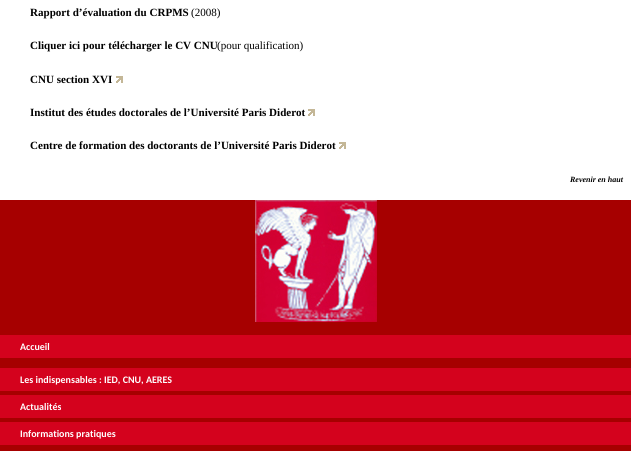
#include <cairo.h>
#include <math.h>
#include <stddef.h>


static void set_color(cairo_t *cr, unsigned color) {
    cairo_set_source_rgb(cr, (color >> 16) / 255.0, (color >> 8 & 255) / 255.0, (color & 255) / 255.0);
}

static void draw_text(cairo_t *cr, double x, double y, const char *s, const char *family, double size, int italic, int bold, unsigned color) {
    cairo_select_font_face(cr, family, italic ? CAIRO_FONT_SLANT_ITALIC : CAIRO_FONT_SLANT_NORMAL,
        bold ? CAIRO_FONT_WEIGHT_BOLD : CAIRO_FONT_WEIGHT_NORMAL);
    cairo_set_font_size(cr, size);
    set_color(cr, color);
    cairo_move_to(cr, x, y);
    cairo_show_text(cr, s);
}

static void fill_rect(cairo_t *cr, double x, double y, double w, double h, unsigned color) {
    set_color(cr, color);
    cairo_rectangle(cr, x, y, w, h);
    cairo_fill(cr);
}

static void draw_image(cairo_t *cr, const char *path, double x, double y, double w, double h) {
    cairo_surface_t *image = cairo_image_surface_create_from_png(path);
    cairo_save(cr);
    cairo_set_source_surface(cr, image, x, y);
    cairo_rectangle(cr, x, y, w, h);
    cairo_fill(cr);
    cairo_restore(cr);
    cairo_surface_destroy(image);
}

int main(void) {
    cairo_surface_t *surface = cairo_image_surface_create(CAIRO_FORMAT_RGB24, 631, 451);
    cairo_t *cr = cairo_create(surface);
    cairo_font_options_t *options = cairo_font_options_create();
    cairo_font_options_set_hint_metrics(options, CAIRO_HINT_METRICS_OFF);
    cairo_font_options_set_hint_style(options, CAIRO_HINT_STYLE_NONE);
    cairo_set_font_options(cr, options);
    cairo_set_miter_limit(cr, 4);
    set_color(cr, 0xFFFFFF);
    cairo_paint(cr);
    draw_text(cr, 30, 16, "Rapport d’évaluation du CRPMS", "Liberation Serif", 11.05, 0, 1, 0x000000);
    draw_text(cr, 191, 16, "(2008)", "Liberation Serif", 11.05, 0, 0, 0x000000);
    draw_text(cr, 30, 49, "Cliquer ici pour télécharger le CV CNU", "Liberation Serif", 11.05, 0, 1, 0x000000);
    draw_text(cr, 217, 49, "(pour qualification)", "Liberation Serif", 11.05, 0, 0, 0x000000);
    draw_text(cr, 30, 83, "CNU section XVI", "Liberation Serif", 11.05, 0, 1, 0x000000);
    draw_image(cr, "assets/img1.png", 116, 76, 7, 7);
    draw_text(cr, 30, 116, "Institut des études doctorales de l’Université Paris Diderot", "Liberation Serif", 11.05, 0, 1, 0x000000);
    draw_image(cr, "assets/img1.png", 308, 109, 7, 7);
    draw_text(cr, 30, 149, "Centre de formation des doctorants de l’Université Paris Diderot", "Liberation Serif", 11.05, 0, 1, 0x000000);
    draw_image(cr, "assets/img1.png", 339, 142, 7, 7);
    draw_text(cr, 570, 182, "Revenir en haut", "Liberation Serif", 8, 1, 1, 0x000000);
    fill_rect(cr, 0, 200, 631, 251, 0xA60000);
    draw_image(cr, "assets/img2.png", 255, 200, 122, 122);
    fill_rect(cr, 0, 335, 631, 23, 0xD4021D);
    draw_text(cr, 20, 350, "Accueil", "Carlito", 10, 0, 1, 0xFFFFFF);
    fill_rect(cr, 0, 368, 631, 23, 0xD4021D);
    draw_text(cr, 20, 383, "Les indispensables : IED, CNU, AERES", "Carlito", 10, 0, 1, 0xFFFFFF);
    fill_rect(cr, 0, 395, 631, 23, 0xD4021D);
    draw_text(cr, 20, 410, "Actualités", "Carlito", 10, 0, 1, 0xFFFFFF);
    fill_rect(cr, 0, 422, 631, 23, 0xD4021D);
    draw_text(cr, 20, 437, "Informations pratiques", "Carlito", 10, 0, 1, 0xFFFFFF);
    cairo_surface_write_to_png(surface, "output.png");
    cairo_font_options_destroy(options);
    cairo_destroy(cr);
    cairo_surface_destroy(surface);
    return 0;
}
